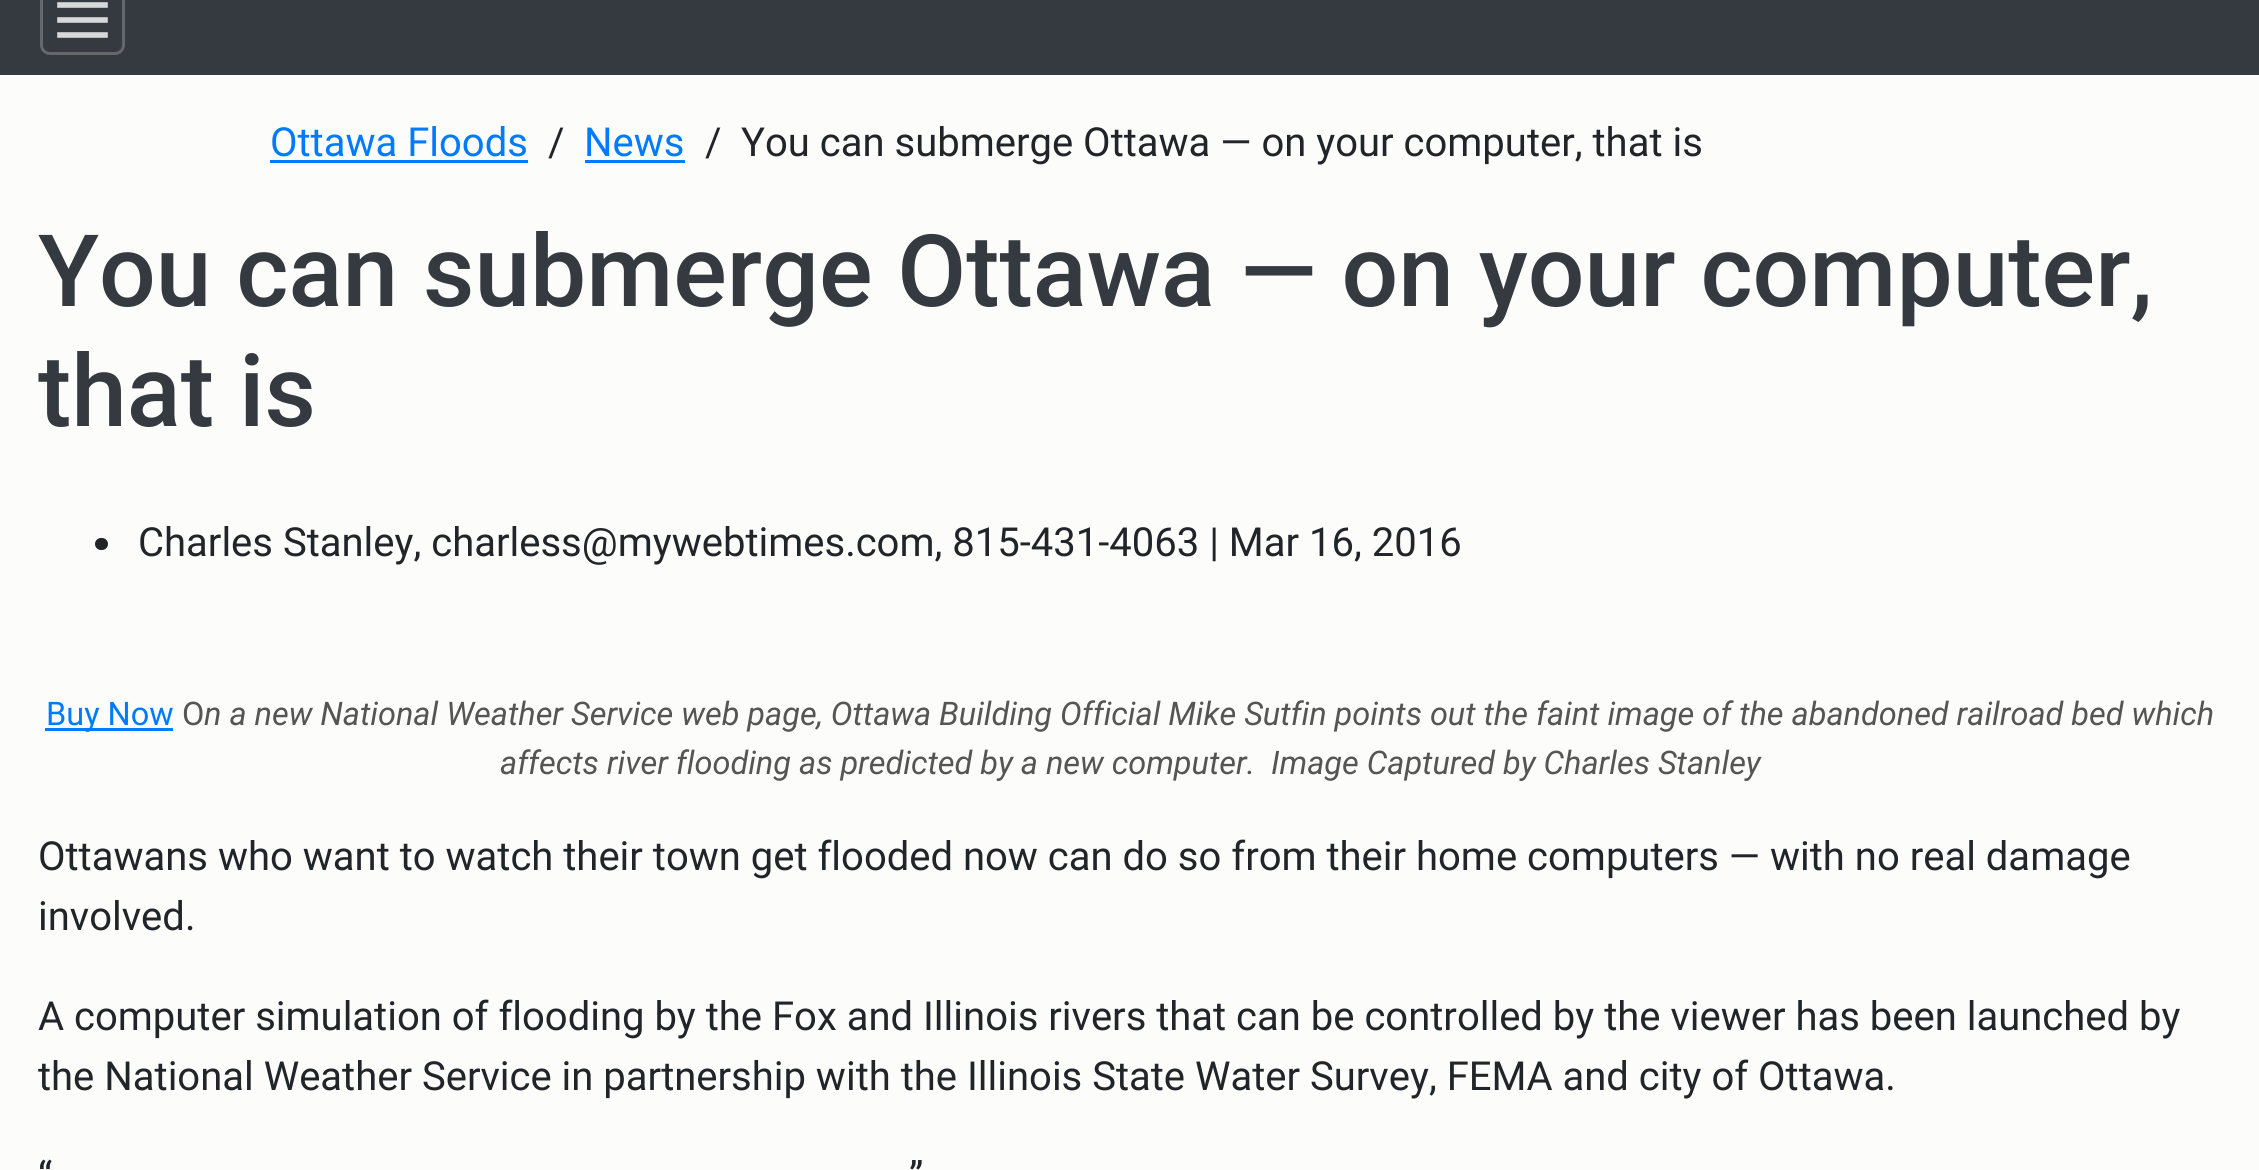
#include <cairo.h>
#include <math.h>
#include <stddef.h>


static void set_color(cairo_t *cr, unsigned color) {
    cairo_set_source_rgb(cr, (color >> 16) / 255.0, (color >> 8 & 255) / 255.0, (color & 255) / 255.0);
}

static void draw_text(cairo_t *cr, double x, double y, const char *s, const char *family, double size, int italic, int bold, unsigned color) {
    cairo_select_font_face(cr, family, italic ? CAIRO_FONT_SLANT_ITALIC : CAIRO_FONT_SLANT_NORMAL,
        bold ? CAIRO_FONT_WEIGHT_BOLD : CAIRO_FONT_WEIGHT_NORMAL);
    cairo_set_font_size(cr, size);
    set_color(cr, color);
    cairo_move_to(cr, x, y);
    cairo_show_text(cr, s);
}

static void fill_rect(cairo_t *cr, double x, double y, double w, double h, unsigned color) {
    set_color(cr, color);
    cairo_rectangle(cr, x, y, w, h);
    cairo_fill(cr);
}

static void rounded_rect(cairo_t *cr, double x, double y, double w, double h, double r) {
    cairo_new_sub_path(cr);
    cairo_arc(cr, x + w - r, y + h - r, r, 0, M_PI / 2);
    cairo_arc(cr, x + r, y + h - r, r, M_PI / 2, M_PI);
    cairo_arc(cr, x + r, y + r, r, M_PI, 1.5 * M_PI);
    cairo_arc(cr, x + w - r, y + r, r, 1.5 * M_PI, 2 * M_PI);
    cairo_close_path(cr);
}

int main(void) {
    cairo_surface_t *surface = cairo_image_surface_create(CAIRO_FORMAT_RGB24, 2259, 1170);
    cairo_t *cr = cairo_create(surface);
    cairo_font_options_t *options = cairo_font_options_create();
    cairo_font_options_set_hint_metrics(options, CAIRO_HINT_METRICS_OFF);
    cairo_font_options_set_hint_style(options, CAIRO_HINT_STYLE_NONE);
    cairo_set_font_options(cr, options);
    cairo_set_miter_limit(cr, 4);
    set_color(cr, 0xFCFCFA);
    cairo_paint(cr);
    fill_rect(cr, 0, 0, 2259, 75, 0x343A40);
    rounded_rect(cr, 41.5, -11.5, 82, 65, 8.5);
    set_color(cr, 0x65686B);
    cairo_set_line_width(cr, 3);
    cairo_stroke(cr);
    cairo_new_path(cr);
    cairo_move_to(cr, 60, 5);
    cairo_line_to(cr, 105, 5);
    cairo_move_to(cr, 60, 20);
    cairo_line_to(cr, 105, 20);
    cairo_move_to(cr, 60, 35);
    cairo_line_to(cr, 105, 35);
    set_color(cr, 0xD6D8D9);
    cairo_set_line_width(cr, 5.6);
    cairo_set_line_cap(cr, CAIRO_LINE_CAP_SQUARE);
    cairo_stroke(cr);
    draw_text(cr, 270, 156, "Ottawa Floods", "Roboto", 40, 0, 0, 0x007BFF);
    fill_rect(cr, 270, 160, 258, 3, 0x007BFF);
    draw_text(cr, 548, 156, "/", "Roboto", 40, 0, 0, 0x212529);
    draw_text(cr, 584, 156, "News", "Roboto", 40, 0, 0, 0x007BFF);
    fill_rect(cr, 585, 160, 100, 3, 0x007BFF);
    draw_text(cr, 705, 156, "/", "Roboto", 40, 0, 0, 0x212529);
    draw_text(cr, 741, 156, "You can submerge Ottawa — on your computer, that is", "Roboto", 40, 0, 0, 0x212529);
    draw_text(cr, 38, 306, "You can submerge Ottawa — on your computer,", "Roboto Medium", 100, 0, 0, 0x343A40);
    draw_text(cr, 38, 426, "that is", "Roboto Medium", 100, 0, 0, 0x343A40);
    set_color(cr, 0x212529);
    rounded_rect(cr, 95, 538, 13, 12, 6);
    cairo_fill(cr);
    draw_text(cr, 138, 556, "Charles Stanley, charless@mywebtimes.com, 815-431-4063 | Mar 16, 2016", "Roboto", 40, 0, 0, 0x212529);
    fill_rect(cr, 45, 728, 128, 3, 0x007BFF);
    draw_text(cr, 46, 725, "Buy Now", "Roboto", 32.5, 0, 0, 0x007BFF);
    draw_text(cr, 182, 725, "O", "Roboto", 32.5, 0, 0, 0x555555);
    draw_text(cr, 204, 725, "n a new National Weather Service web page, Ottawa Building Official Mike Sutfin points out the faint image of the abandoned railroad bed which", "Roboto", 32.5, 1, 0, 0x555555);
    draw_text(cr, 500, 774, "affects river flooding as predicted by a new computer.  Image Captured by Charles Stanley", "Roboto", 32.5, 1, 0, 0x555555);
    draw_text(cr, 38, 870, "Ottawans who want to watch their town get flooded now can do so from their home computers — with no real damage", "Roboto", 40, 0, 0, 0x212529);
    draw_text(cr, 38, 930, "involved.", "Roboto", 40, 0, 0, 0x212529);
    draw_text(cr, 38, 1030, "A computer simulation of flooding by the Fox and Illinois rivers that can be controlled by the viewer has been launched by", "Roboto", 40, 0, 0, 0x212529);
    draw_text(cr, 38, 1090, "the National Weather Service in partnership with the Illinois State Water Survey, FEMA and city of Ottawa.", "Roboto", 40, 0, 0, 0x212529);
    draw_text(cr, 38, 1190, "“", "Roboto", 40, 0, 0, 0x212529);
    draw_text(cr, 909, 1190, "”", "Roboto", 40, 0, 0, 0x212529);
    cairo_surface_write_to_png(surface, "output.png");
    cairo_font_options_destroy(options);
    cairo_destroy(cr);
    cairo_surface_destroy(surface);
    return 0;
}
